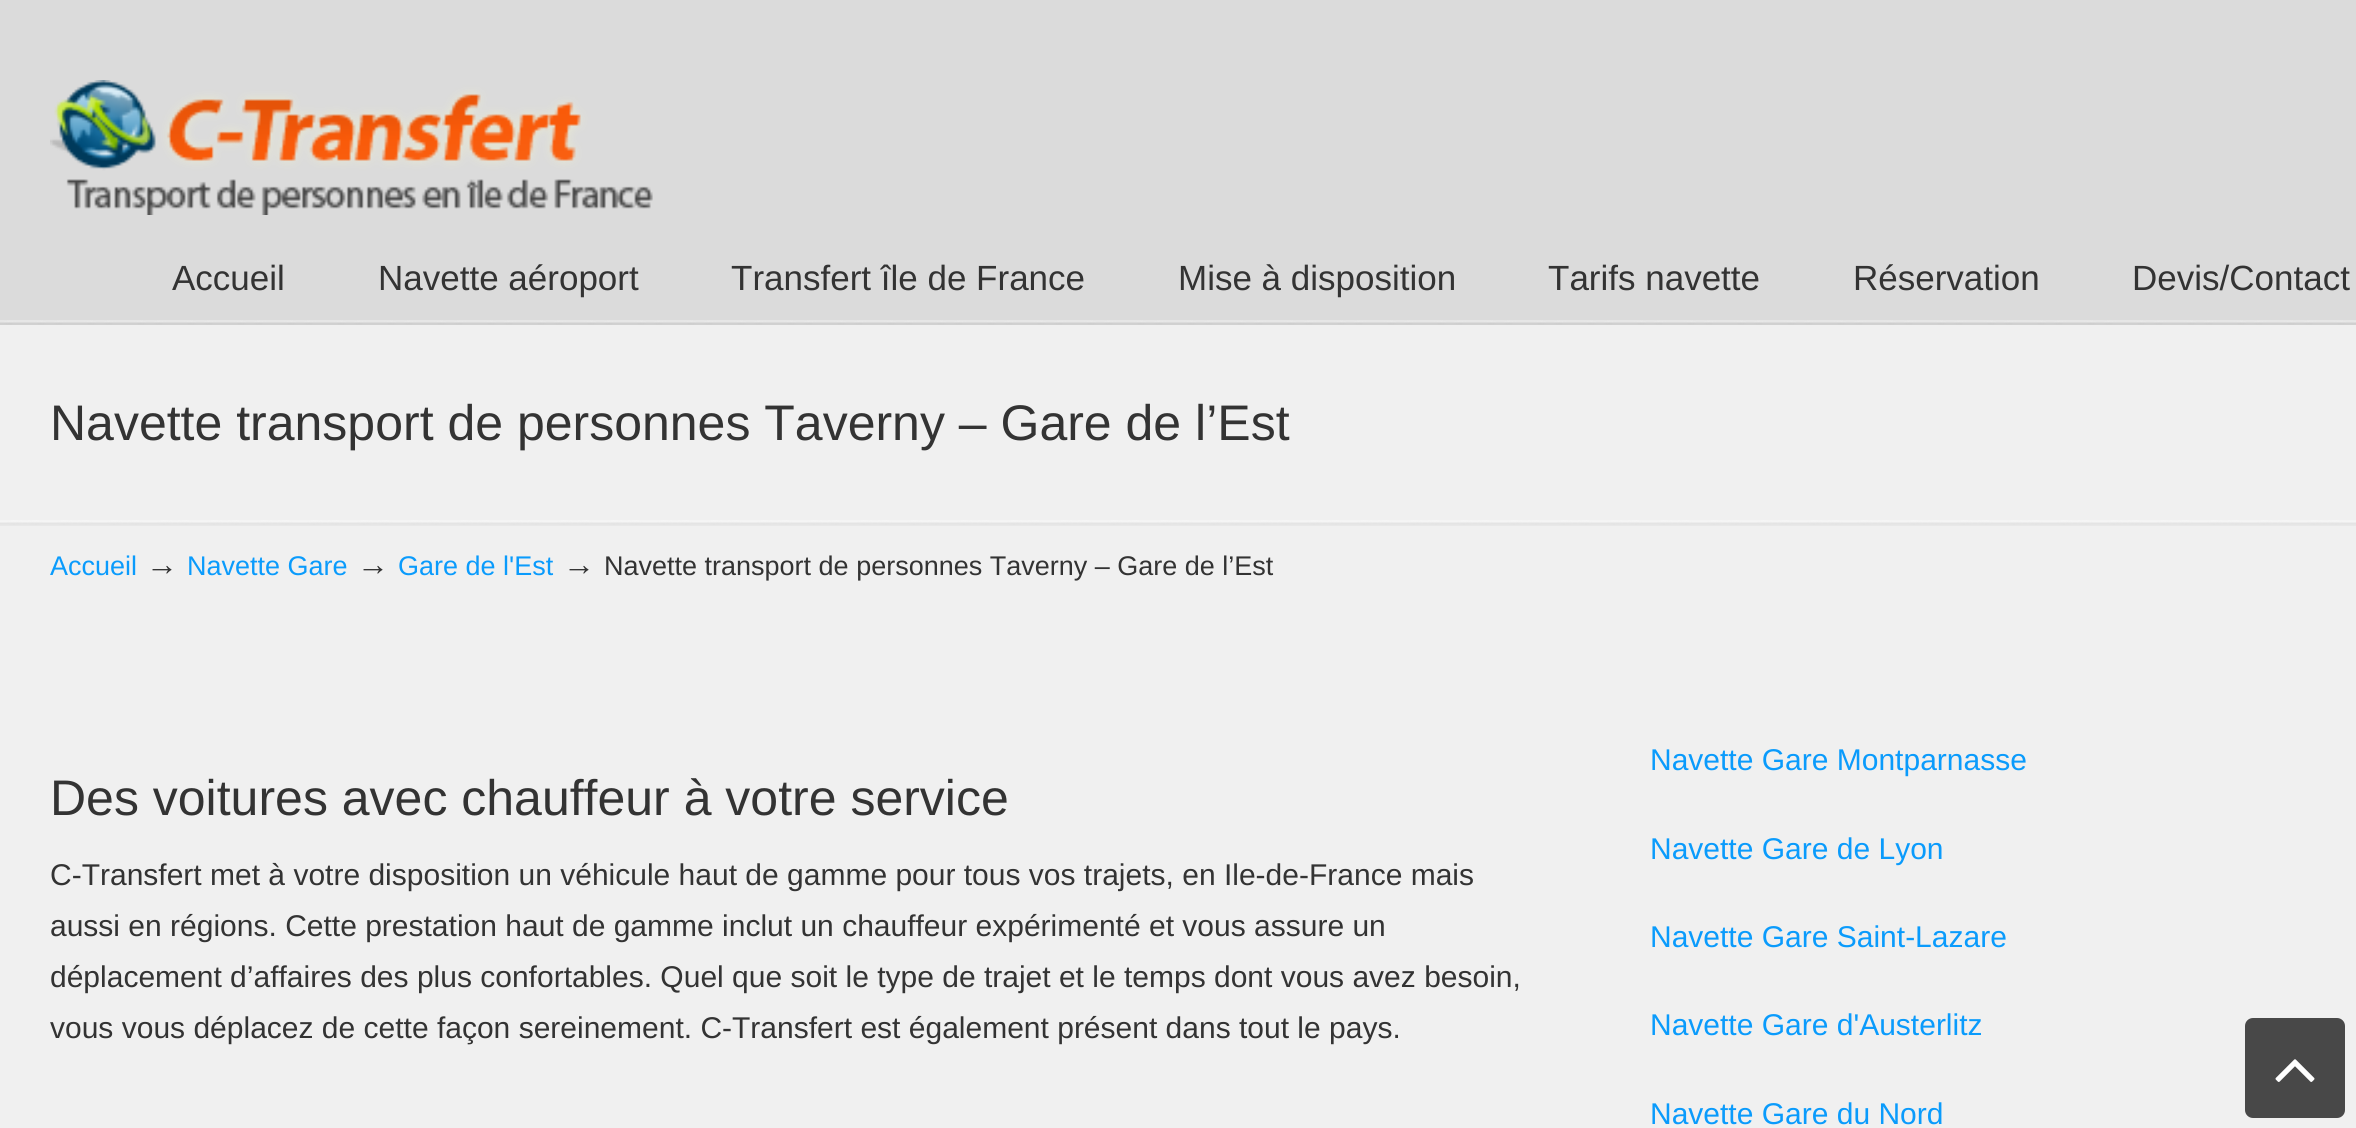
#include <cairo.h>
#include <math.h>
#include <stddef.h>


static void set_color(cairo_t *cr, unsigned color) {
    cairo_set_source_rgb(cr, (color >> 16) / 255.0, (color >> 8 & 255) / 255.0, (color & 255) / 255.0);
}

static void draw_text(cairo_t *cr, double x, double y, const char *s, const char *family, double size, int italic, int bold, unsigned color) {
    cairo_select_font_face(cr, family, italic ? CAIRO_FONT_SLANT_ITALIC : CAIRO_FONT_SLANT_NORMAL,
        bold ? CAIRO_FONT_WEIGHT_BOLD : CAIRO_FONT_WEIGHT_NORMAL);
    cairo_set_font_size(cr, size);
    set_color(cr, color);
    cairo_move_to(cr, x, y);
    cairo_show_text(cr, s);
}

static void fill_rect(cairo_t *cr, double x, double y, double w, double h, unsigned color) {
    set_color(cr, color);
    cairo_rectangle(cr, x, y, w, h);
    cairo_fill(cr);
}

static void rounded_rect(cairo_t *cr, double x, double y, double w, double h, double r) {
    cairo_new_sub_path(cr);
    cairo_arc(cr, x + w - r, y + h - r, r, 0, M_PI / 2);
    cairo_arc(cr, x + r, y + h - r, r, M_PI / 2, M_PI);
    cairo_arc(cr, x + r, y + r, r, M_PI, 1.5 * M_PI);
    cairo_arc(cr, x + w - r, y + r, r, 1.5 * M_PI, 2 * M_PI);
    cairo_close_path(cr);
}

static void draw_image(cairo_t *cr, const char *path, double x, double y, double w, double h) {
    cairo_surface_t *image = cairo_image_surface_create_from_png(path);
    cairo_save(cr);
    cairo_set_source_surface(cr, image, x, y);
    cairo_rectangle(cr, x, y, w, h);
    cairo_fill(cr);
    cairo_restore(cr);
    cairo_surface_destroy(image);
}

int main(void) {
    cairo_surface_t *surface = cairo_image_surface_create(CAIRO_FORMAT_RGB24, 2356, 1128);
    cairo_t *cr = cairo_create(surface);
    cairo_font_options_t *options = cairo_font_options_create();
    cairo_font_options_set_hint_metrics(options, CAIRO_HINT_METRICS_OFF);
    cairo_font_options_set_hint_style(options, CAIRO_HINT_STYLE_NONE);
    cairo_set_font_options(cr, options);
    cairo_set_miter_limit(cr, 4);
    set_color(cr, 0xF0F0F0);
    cairo_paint(cr);
    fill_rect(cr, 0, 0, 2356, 325, 0xDBDBDB);
    draw_image(cr, "assets/img1.png", 50, 80, 603, 135);
    draw_text(cr, 172, 290, "Accueil", "Liberation Sans", 35, 0, 0, 0x333333);
    draw_text(cr, 378, 290, "Navette aéroport", "Liberation Sans", 35, 0, 0, 0x333333);
    draw_text(cr, 731, 290, "Transfert île de France", "Liberation Sans", 35, 0, 0, 0x333333);
    draw_text(cr, 1178, 290, "Mise à disposition", "Liberation Sans", 35, 0, 0, 0x333333);
    draw_text(cr, 1548, 290, "Tarifs navette", "Liberation Sans", 35, 0, 0, 0x333333);
    draw_text(cr, 1853, 290, "Réservation", "Liberation Sans", 35, 0, 0, 0x333333);
    draw_text(cr, 2132, 290, "Devis/Contact", "Liberation Sans", 35, 0, 0, 0x333333);
    draw_image(cr, "assets/img2.png", 0, 320, 2356, 5);
    draw_text(cr, 50, 440, "Navette transport de personnes Taverny – Gare de l’Est", "Liberation Sans", 50, 0, 0, 0x333333);
    draw_image(cr, "assets/img3.png", 0, 520, 2356, 6);
    draw_text(cr, 50, 575, "Accueil", "Liberation Sans", 27, 0, 0, 0x0A9BFC);
    draw_text(cr, 146, 575, "→", "Liberation Sans", 32, 0, 0, 0x333333);
    draw_text(cr, 187, 575, "Navette Gare", "Liberation Sans", 27, 0, 0, 0x0A9BFC);
    draw_text(cr, 357, 575, "→", "Liberation Sans", 32, 0, 0, 0x333333);
    draw_text(cr, 398, 575, "Gare de l'Est", "Liberation Sans", 27, 0, 0, 0x0A9BFC);
    draw_text(cr, 563, 575, "→", "Liberation Sans", 32, 0, 0, 0x333333);
    draw_text(cr, 604, 575, "Navette transport de personnes Taverny – Gare de l’Est", "Liberation Sans", 27, 0, 0, 0x333333);
    draw_text(cr, 50, 815, "Des voitures avec chauffeur à votre service", "Liberation Sans", 50, 0, 0, 0x333333);
    draw_text(cr, 50, 885, "C-Transfert met à votre disposition un véhicule haut de gamme pour tous vos trajets, en Ile-de-France mais", "Liberation Sans", 30, 0, 0, 0x333333);
    draw_text(cr, 50, 936, "aussi en régions. Cette prestation haut de gamme inclut un chauffeur expérimenté et vous assure un", "Liberation Sans", 30, 0, 0, 0x333333);
    draw_text(cr, 50, 987, "déplacement d’affaires des plus confortables. Quel que soit le type de trajet et le temps dont vous avez besoin,", "Liberation Sans", 30, 0, 0, 0x333333);
    draw_text(cr, 50, 1038, "vous vous déplacez de cette façon sereinement. C-Transfert est également présent dans tout le pays.", "Liberation Sans", 30, 0, 0, 0x333333);
    draw_text(cr, 1650, 770, "Navette Gare Montparnasse", "Liberation Sans", 30, 0, 0, 0x0A9BFC);
    draw_text(cr, 1650, 859, "Navette Gare de Lyon", "Liberation Sans", 30, 0, 0, 0x0A9BFC);
    draw_text(cr, 1650, 947, "Navette Gare Saint-Lazare", "Liberation Sans", 30, 0, 0, 0x0A9BFC);
    draw_text(cr, 1650, 1035, "Navette Gare d'Austerlitz", "Liberation Sans", 30, 0, 0, 0x0A9BFC);
    draw_text(cr, 1650, 1124, "Navette Gare du Nord", "Liberation Sans", 30, 0, 0, 0x0A9BFC);
    set_color(cr, 0x484848);
    rounded_rect(cr, 2245, 1018, 100, 100, 8);
    cairo_fill(cr);
    draw_image(cr, "assets/img4.png", 2275, 1059, 40, 23);
    cairo_surface_write_to_png(surface, "output.png");
    cairo_font_options_destroy(options);
    cairo_destroy(cr);
    cairo_surface_destroy(surface);
    return 0;
}
